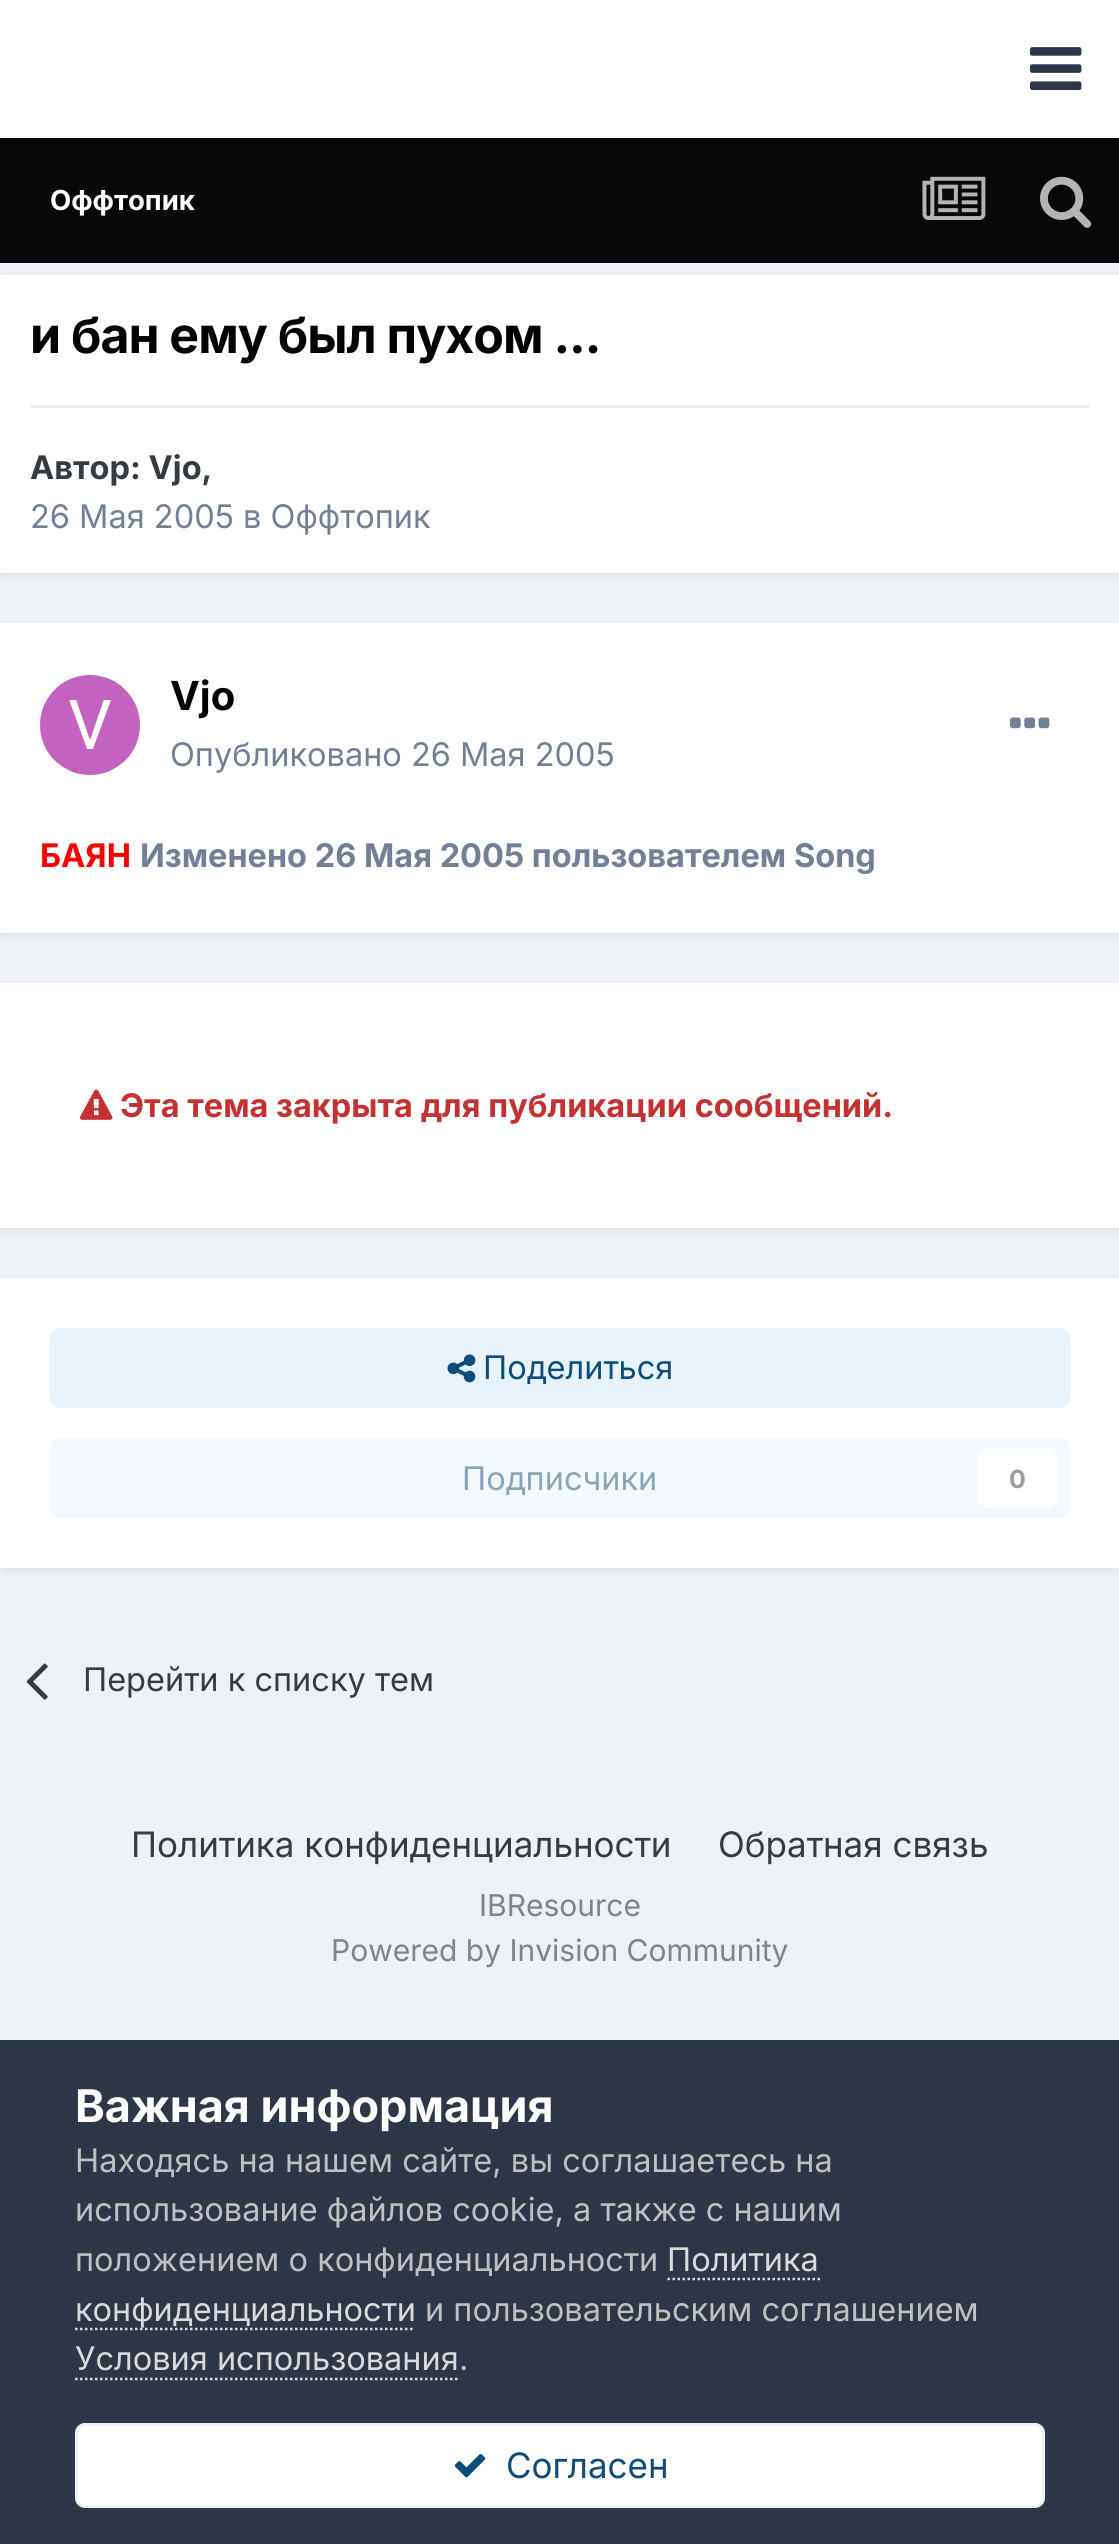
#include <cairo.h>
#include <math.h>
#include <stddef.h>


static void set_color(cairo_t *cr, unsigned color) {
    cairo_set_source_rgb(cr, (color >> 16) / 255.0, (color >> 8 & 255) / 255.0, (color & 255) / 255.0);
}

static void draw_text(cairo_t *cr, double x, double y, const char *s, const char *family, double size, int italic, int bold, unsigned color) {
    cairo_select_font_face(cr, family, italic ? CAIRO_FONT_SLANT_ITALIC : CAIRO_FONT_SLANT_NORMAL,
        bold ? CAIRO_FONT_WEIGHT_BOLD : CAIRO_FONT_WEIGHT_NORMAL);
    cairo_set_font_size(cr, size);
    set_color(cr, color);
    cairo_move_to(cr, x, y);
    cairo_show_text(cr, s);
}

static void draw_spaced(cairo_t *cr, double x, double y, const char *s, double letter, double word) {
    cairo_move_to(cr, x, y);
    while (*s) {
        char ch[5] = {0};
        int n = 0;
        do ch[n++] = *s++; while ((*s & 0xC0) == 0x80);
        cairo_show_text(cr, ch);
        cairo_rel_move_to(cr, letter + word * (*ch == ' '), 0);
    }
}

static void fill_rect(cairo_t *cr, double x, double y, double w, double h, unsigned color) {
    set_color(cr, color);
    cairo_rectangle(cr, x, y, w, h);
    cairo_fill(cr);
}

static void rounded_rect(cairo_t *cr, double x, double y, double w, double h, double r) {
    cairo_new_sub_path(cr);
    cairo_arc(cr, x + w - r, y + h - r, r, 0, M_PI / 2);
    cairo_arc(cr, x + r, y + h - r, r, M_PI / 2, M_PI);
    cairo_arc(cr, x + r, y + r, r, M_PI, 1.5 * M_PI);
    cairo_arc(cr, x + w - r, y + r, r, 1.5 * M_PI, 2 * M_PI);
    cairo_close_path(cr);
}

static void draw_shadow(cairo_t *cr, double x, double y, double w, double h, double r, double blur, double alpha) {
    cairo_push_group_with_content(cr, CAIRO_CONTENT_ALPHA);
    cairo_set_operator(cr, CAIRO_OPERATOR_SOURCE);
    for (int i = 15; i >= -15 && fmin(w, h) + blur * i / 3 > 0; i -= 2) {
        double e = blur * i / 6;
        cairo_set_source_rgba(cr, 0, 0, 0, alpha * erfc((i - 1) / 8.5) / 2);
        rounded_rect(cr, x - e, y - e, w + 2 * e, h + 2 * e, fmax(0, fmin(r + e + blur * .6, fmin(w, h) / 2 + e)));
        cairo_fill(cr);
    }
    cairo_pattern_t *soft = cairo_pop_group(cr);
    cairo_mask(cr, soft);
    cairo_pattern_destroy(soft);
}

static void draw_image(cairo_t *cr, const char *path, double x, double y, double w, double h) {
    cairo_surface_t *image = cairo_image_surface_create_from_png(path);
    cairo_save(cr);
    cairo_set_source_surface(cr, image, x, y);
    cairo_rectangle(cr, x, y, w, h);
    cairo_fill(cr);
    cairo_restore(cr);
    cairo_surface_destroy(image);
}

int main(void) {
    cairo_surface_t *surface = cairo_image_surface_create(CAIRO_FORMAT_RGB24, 1119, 2544);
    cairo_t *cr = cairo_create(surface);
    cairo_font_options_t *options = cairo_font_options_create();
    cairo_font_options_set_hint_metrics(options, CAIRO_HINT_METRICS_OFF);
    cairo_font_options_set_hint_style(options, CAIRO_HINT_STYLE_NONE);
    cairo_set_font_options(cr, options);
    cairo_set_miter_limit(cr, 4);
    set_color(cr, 0xEDF0F4);
    cairo_paint(cr);
    fill_rect(cr, 0, 0, 1119, 138, 0xFFFFFF);
    draw_image(cr, "assets/img1.png", 1030, 47, 52, 43);
    fill_rect(cr, 0, 138, 1119, 125, 0x080808);
    draw_text(cr, 50, 210, "Оффтопик", "Inter", 27.5, 0, 1, 0xFFFFFF);
    draw_image(cr, "assets/img2.png", 922, 176, 64, 44);
    draw_image(cr, "assets/img3.png", 1040, 176, 52, 52);
    set_color(cr, 0x2D3748);
    draw_shadow(cr, 3, 283, 1115, 292, 0, 5, 0.1);
    fill_rect(cr, 0, 275, 1119, 298, 0xFFFFFF);
    cairo_set_font_size(cr, 50);
    set_color(cr, 0x000000);
    draw_spaced(cr, 30, 353, "и бан ему был пухом ...", -1, 0);
    fill_rect(cr, 30, 405, 1060, 3, 0xEFEFF0);
    draw_text(cr, 30, 479, "Автор: Vjo,", "Inter", 32.5, 0, 1, 0x353C41);
    draw_text(cr, 30, 528, "26 Мая 2005 в Оффтопик", "Inter", 32.5, 0, 0, 0x718096);
    set_color(cr, 0x2D3748);
    draw_shadow(cr, 3, 630, 1115, 305, 0, 5, 0.1);
    fill_rect(cr, 0, 623, 1119, 310, 0xFFFFFF);
    draw_image(cr, "assets/img4.png", 40, 675, 100, 100);
    draw_text(cr, 170, 710, "Vjo", "Inter", 40, 0, 1, 0x000000);
    draw_text(cr, 170, 766, "Опубликовано 26 Мая 2005", "Inter", 32.5, 0, 0, 0x718096);
    draw_image(cr, "assets/img5.png", 1010, 717, 40, 12);
    draw_text(cr, 40, 867, "БАЯН", "Inter", 32.5, 0, 1, 0xFF0000);
    draw_text(cr, 140, 867, "Изменено 26 Мая 2005 пользователем Song", "Inter", 32.5, 0, 1, 0x718096);
    set_color(cr, 0x2D3748);
    draw_shadow(cr, 3, 990, 1115, 240, 0, 5, 0.1);
    fill_rect(cr, 0, 983, 1119, 245, 0xFFFFFF);
    draw_image(cr, "assets/img6.png", 80, 1089, 33, 31);
    draw_text(cr, 120, 1117, "Эта тема закрыта для публикации сообщений.", "Inter", 32.5, 0, 1, 0xC53030);
    set_color(cr, 0x2D3748);
    draw_shadow(cr, 3, 1285, 1115, 285, 0, 5, 0.1);
    fill_rect(cr, 0, 1278, 1119, 290, 0xFFFFFF);
    set_color(cr, 0xE8F2FA);
    rounded_rect(cr, 50, 1328, 1020, 80, 10);
    cairo_fill(cr);
    draw_image(cr, "assets/img7.png", 447, 1354, 29, 29);
    draw_text(cr, 483, 1379, "Поделиться", "Inter", 32.5, 0, 0, 0x0E4C79);
    set_color(cr, 0xF4F9FD);
    rounded_rect(cr, 50, 1438, 1020, 80, 10);
    cairo_fill(cr);
    draw_text(cr, 462, 1490, "Подписчики", "Inter", 32.5, 0, 0, 0x87A6BC);
    set_color(cr, 0xFFFFFF);
    rounded_rect(cr, 978, 1448, 80, 60, 10);
    cairo_fill(cr);
    draw_text(cr, 1009, 1488, "0", "Inter", 25, 0, 1, 0x9A9EA0);
    draw_image(cr, "assets/img8.png", 26, 1663, 22, 37);
    draw_text(cr, 83, 1691, "Перейти к списку тем", "Inter", 32.5, 0, 0, 0x353C41);
    draw_text(cr, 131, 1857, "Политика конфиденциальности", "Inter", 35, 0, 0, 0x353C41);
    draw_text(cr, 718, 1857, "Обратная связь", "Inter", 35, 0, 0, 0x353C41);
    draw_text(cr, 479, 1916, "IBResource", "Inter", 30, 0, 0, 0x7F8489);
    draw_text(cr, 331, 1961, "Powered by Invision Community", "Inter", 30, 0, 0, 0x7F8489);
    fill_rect(cr, 0, 2040, 1119, 504, 0x2D3748);
    draw_text(cr, 75, 2122, "Важная информация", "Inter", 45, 0, 1, 0xFFFFFF);
    draw_text(cr, 75, 2172, "Находясь на нашем сайте, вы соглашаетесь на", "Inter", 32.5, 0, 0, 0xC0C0C0);
    draw_text(cr, 75, 2221, "использование файлов cookie, а также с нашим", "Inter", 32.5, 0, 0, 0xC0C0C0);
    draw_text(cr, 75, 2271, "положением о конфиденциальности", "Inter", 32.5, 0, 0, 0xC0C0C0);
    draw_text(cr, 667, 2271, "Политика", "Inter", 32.5, 0, 0, 0xDADADA);
    cairo_new_path(cr);
    cairo_move_to(cr, 667.5, 2279);
    cairo_line_to(cr, 820, 2279);
    cairo_set_line_width(cr, 2.5);
    cairo_set_dash(cr, (double[]){2.5, 2.5}, 2, 0);
    cairo_stroke(cr);
    cairo_new_path(cr);
    cairo_move_to(cr, 75, 2329);
    cairo_line_to(cr, 415, 2329);
    cairo_stroke(cr);
    draw_text(cr, 75, 2321, "конфиденциальности", "Inter", 32.5, 0, 0, 0xDADADA);
    draw_text(cr, 425, 2321, "и пользовательским соглашением", "Inter", 32.5, 0, 0, 0xC0C0C0);
    draw_text(cr, 75, 2370, "Условия использования", "Inter", 32.5, 0, 0, 0xDADADA);
    cairo_new_path(cr);
    cairo_move_to(cr, 75, 2379);
    cairo_line_to(cr, 457.5, 2379);
    cairo_stroke(cr);
    draw_text(cr, 459, 2370, ".", "Inter", 32.5, 0, 0, 0xC0C0C0);
    set_color(cr, 0xFFFFFF);
    rounded_rect(cr, 75, 2423, 970, 85, 10);
    cairo_fill(cr);
    rounded_rect(cr, 76.5, 2424.5, 967, 82, 8.5);
    cairo_set_source_rgba(cr, 0.055, 0.298, 0.475, 0.07);
    cairo_set_line_width(cr, 3);
    cairo_set_dash(cr, NULL, 0, 0);
    cairo_stroke(cr);
    draw_image(cr, "assets/img9.png", 454, 2454, 32, 24);
    draw_text(cr, 506, 2478, "Согласен", "Inter", 35, 0, 0, 0x0E4C79);
    cairo_surface_write_to_png(surface, "output.png");
    cairo_font_options_destroy(options);
    cairo_destroy(cr);
    cairo_surface_destroy(surface);
    return 0;
}
